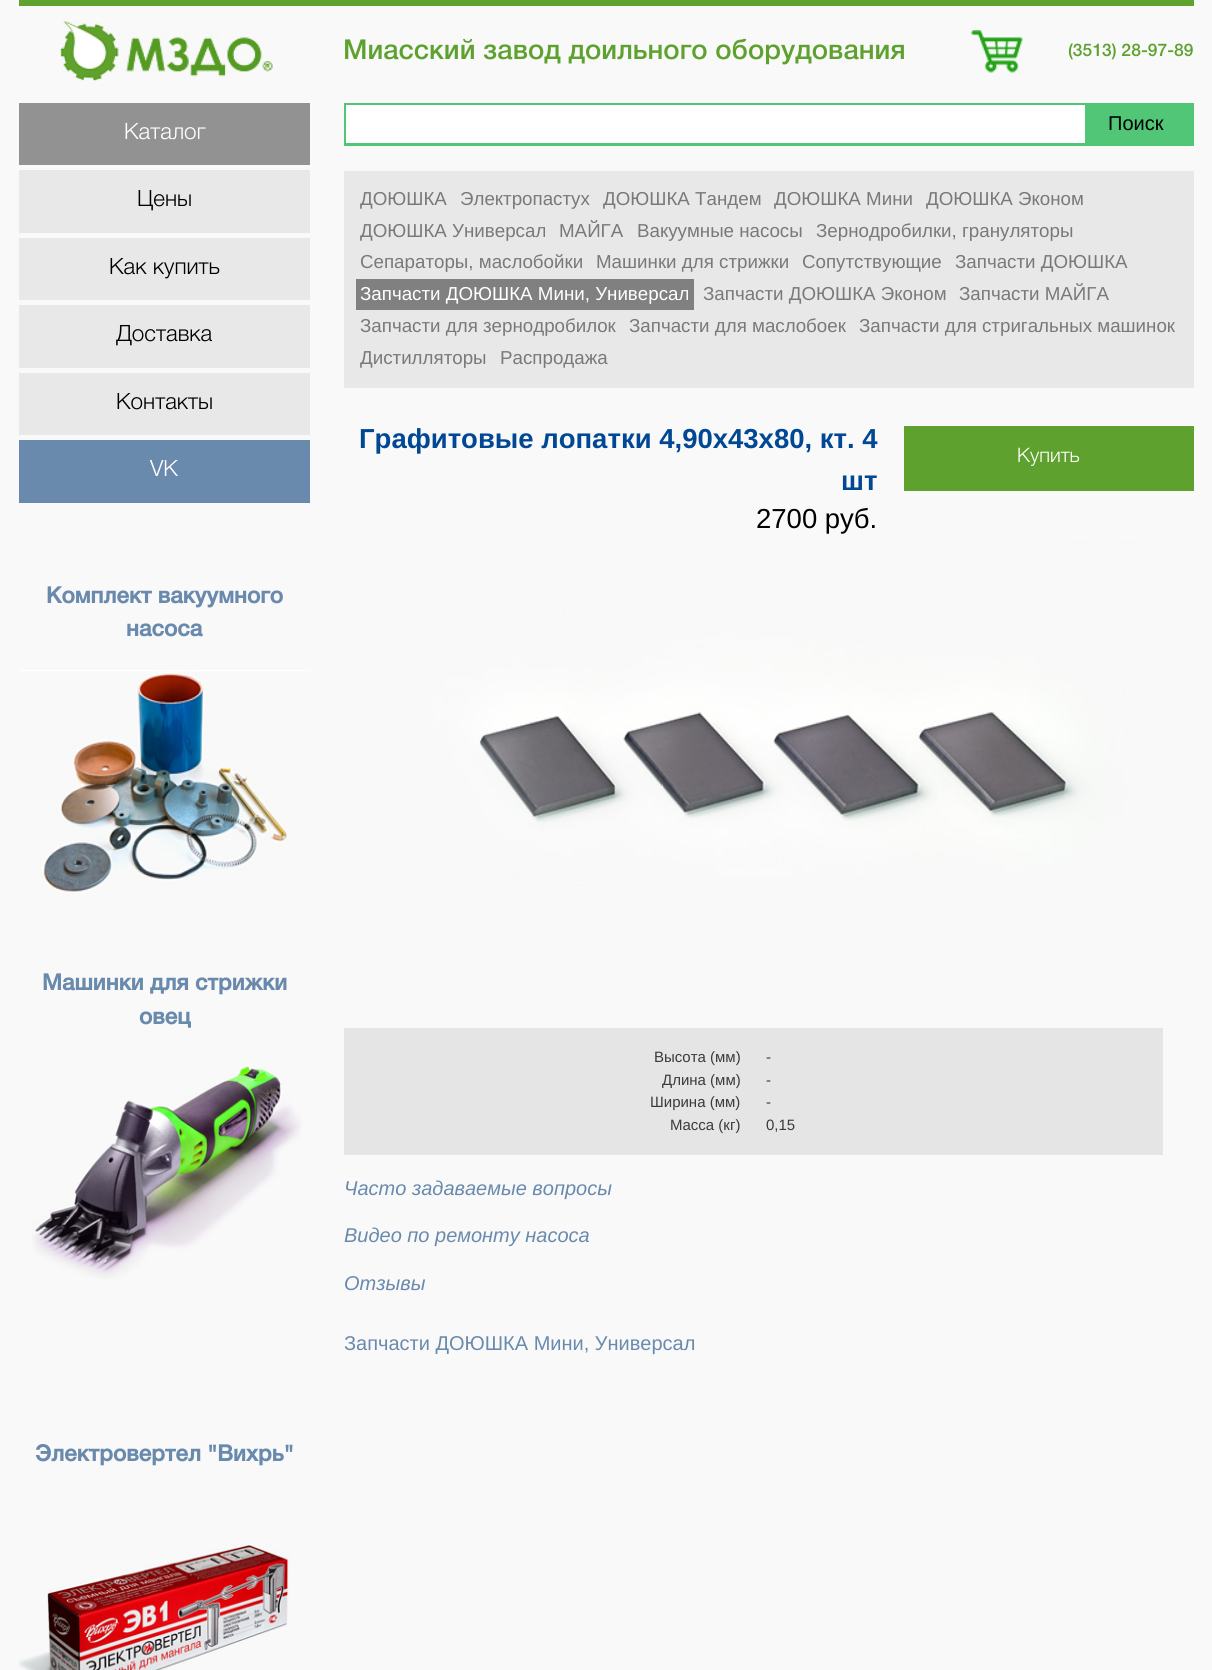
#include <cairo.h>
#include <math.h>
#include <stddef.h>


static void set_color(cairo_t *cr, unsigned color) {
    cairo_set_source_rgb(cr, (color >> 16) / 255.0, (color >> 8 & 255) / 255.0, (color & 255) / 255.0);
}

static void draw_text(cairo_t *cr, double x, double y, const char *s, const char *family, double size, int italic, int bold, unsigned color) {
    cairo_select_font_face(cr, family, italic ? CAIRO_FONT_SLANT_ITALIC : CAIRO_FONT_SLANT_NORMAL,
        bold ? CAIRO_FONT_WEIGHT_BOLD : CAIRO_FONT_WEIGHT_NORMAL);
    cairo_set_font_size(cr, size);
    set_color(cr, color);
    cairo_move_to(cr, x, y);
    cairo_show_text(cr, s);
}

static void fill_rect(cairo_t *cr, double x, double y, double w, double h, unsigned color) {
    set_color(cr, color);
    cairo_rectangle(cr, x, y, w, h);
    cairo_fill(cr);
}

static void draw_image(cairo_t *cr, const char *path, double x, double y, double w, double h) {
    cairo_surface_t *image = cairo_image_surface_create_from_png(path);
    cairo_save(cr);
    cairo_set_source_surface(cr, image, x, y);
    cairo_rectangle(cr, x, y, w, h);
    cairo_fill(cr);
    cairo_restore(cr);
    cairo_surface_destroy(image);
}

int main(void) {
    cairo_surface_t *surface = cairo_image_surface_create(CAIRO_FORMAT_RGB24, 1212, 1670);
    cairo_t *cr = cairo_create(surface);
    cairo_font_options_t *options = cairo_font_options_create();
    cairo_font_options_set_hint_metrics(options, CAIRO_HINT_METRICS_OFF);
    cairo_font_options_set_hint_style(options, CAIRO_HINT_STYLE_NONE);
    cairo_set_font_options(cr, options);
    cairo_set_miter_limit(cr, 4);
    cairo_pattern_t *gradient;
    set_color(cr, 0xF9F9F9);
    cairo_paint(cr);
    fill_rect(cr, 19, 0, 1175, 6, 0x60A22E);
    draw_image(cr, "assets/img1.png", 60, 21, 213, 61);
    draw_text(cr, 343, 59, "Миасский завод доильного оборудования", "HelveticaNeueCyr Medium", 27.5, 0, 0, 0x5EA12F);
    draw_image(cr, "assets/img2.png", 971, 30, 52, 43);
    draw_text(cr, 1068, 56, "(3513) 28-97-89", "HelveticaNeueCyr Medium", 17.5, 0, 0, 0x5EA12F);
    fill_rect(cr, 19, 103, 291, 62, 0x929292);
    draw_text(cr, 124, 139, "Каталог", "HelveticaNeueCyr Light", 22.5, 0, 0, 0xFFFFFF);
    fill_rect(cr, 19, 170, 291, 63, 0xE8E8E8);
    draw_text(cr, 137, 206, "Цены", "HelveticaNeueCyr Light", 22.5, 0, 0, 0x000000);
    fill_rect(cr, 19, 238, 291, 62, 0xE8E8E8);
    draw_text(cr, 109, 274, "Как купить", "HelveticaNeueCyr Light", 22.5, 0, 0, 0x000000);
    fill_rect(cr, 19, 305, 291, 63, 0xE8E8E8);
    draw_text(cr, 116, 341, "Доставка", "HelveticaNeueCyr Light", 22.5, 0, 0, 0x000000);
    fill_rect(cr, 19, 373, 291, 62, 0xE8E8E8);
    draw_text(cr, 116, 409, "Контакты", "HelveticaNeueCyr Light", 22.5, 0, 0, 0x000000);
    fill_rect(cr, 19, 440, 291, 63, 0x698AAD);
    draw_text(cr, 150, 476, "VK", "HelveticaNeueCyr Light", 22.5, 0, 0, 0xFFFFFF);
    draw_text(cr, 46, 603, "Комплект вакуумного", "HelveticaNeueCyr", 22.5, 0, 1, 0x698AAD);
    draw_text(cr, 126, 636, "насоса", "HelveticaNeueCyr", 22.5, 0, 1, 0x698AAD);
    draw_image(cr, "assets/img3.png", 19, 670, 291, 223);
    draw_text(cr, 42, 990, "Машинки для стрижки", "HelveticaNeueCyr", 22.5, 0, 1, 0x698AAD);
    draw_text(cr, 139, 1024, "овец", "HelveticaNeueCyr", 22.5, 0, 1, 0x698AAD);
    draw_image(cr, "assets/img4.png", 32, 1066, 270, 213);
    draw_text(cr, 35, 1461, "Электровертел \"Вихрь\"", "HelveticaNeueCyr", 22.5, 0, 1, 0x698AAD);
    draw_image(cr, "assets/img5.png", 19, 1544, 271, 126);
    fill_rect(cr, 344, 103, 850, 43, 0x50C676);
    fill_rect(cr, 346, 105, 739, 38, 0xFFFFFF);
    draw_text(cr, 1108, 130, "Поиск", "Liberation Sans", 20, 0, 0, 0x000000);
    fill_rect(cr, 344, 171, 850, 217, 0xE8E8E8);
    draw_text(cr, 360, 205, "ДОЮШКА", "Liberation Sans", 18.75, 0, 0, 0x797979);
    draw_text(cr, 460, 205, "Электропастух", "Liberation Sans", 18.75, 0, 0, 0x797979);
    draw_text(cr, 603, 205, "ДОЮШКА Тандем", "Liberation Sans", 18.75, 0, 0, 0x797979);
    draw_text(cr, 774, 205, "ДОЮШКА Мини", "Liberation Sans", 18.75, 0, 0, 0x797979);
    draw_text(cr, 926, 205, "ДОЮШКА Эконом", "Liberation Sans", 18.75, 0, 0, 0x797979);
    draw_text(cr, 360, 237, "ДОЮШКА Универсал", "Liberation Sans", 18.75, 0, 0, 0x797979);
    draw_text(cr, 559, 237, "МАЙГА", "Liberation Sans", 18.75, 0, 0, 0x797979);
    draw_text(cr, 637, 237, "Вакуумные насосы", "Liberation Sans", 18.75, 0, 0, 0x797979);
    draw_text(cr, 816, 237, "Зернодробилки, грануляторы", "Liberation Sans", 18.75, 0, 0, 0x797979);
    draw_text(cr, 360, 268, "Сепараторы, маслобойки", "Liberation Sans", 18.75, 0, 0, 0x797979);
    draw_text(cr, 596, 268, "Машинки для стрижки", "Liberation Sans", 18.75, 0, 0, 0x797979);
    draw_text(cr, 802, 268, "Сопутствующие", "Liberation Sans", 18.75, 0, 0, 0x797979);
    draw_text(cr, 955, 268, "Запчасти ДОЮШКА", "Liberation Sans", 18.75, 0, 0, 0x797979);
    fill_rect(cr, 356, 279, 338, 31, 0x808080);
    draw_text(cr, 360, 300, "Запчасти ДОЮШКА Мини, Универсал", "Liberation Sans", 18.75, 0, 0, 0xFFFFFF);
    draw_text(cr, 703, 300, "Запчасти ДОЮШКА Эконом", "Liberation Sans", 18.75, 0, 0, 0x797979);
    draw_text(cr, 959, 300, "Запчасти МАЙГА", "Liberation Sans", 18.75, 0, 0, 0x797979);
    draw_text(cr, 360, 332, "Запчасти для зернодробилок", "Liberation Sans", 18.75, 0, 0, 0x797979);
    draw_text(cr, 629, 332, "Запчасти для маслобоек", "Liberation Sans", 18.75, 0, 0, 0x797979);
    draw_text(cr, 859, 332, "Запчасти для стригальных машинок", "Liberation Sans", 18.75, 0, 0, 0x797979);
    draw_text(cr, 360, 364, "Дистилляторы", "Liberation Sans", 18.75, 0, 0, 0x797979);
    draw_text(cr, 500, 364, "Распродажа", "Liberation Sans", 18.75, 0, 0, 0x797979);
    draw_text(cr, 359, 448, "Графитовые лопатки 4,90х43х80, кт. 4", "Liberation Sans", 27.5, 0, 1, 0x004794);
    draw_text(cr, 841, 490, "шт", "Liberation Sans", 27.5, 0, 1, 0x004794);
    draw_text(cr, 756, 528, "2700 руб.", "Liberation Sans", 27.5, 0, 0, 0x000000);
    gradient = cairo_pattern_create_linear(1194, 1145, 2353, 102);
    cairo_pattern_add_color_stop_rgba(gradient, 0, 0.369, 0.631, 0.18, 1);
    cairo_pattern_add_color_stop_rgba(gradient, 0.5, 0.369, 0.631, 0.18, 1);
    cairo_pattern_add_color_stop_rgba(gradient, 1, 0.412, 0.541, 0.678, 1);
    cairo_set_source(cr, gradient);
    cairo_pattern_destroy(gradient);
    cairo_rectangle(cr, 904, 426, 290, 65);
    cairo_fill(cr);
    fill_rect(cr, 904, 425, 290, 1, 0xFFFFFF);
    draw_text(cr, 1017, 462, "Купить", "HelveticaNeueCyr Light", 20, 0, 0, 0xFFFFFF);
    fill_rect(cr, 344, 536, 850, 1, 0xFFFFFF);
    draw_image(cr, "assets/img6.png", 344, 536, 850, 479);
    fill_rect(cr, 344, 1028, 819, 127, 0xE5E5E5);
    draw_text(cr, 654, 1062, "Высота (мм)", "Liberation Sans", 15, 0, 0, 0x3A3A3A);
    draw_text(cr, 766, 1062, "-", "Liberation Sans", 15, 0, 0, 0x3A3A3A);
    draw_text(cr, 662, 1085, "Длина (мм)", "Liberation Sans", 15, 0, 0, 0x3A3A3A);
    draw_text(cr, 766, 1085, "-", "Liberation Sans", 15, 0, 0, 0x3A3A3A);
    draw_text(cr, 650, 1107, "Ширина (мм)", "Liberation Sans", 15, 0, 0, 0x3A3A3A);
    draw_text(cr, 766, 1107, "-", "Liberation Sans", 15, 0, 0, 0x3A3A3A);
    draw_text(cr, 670, 1130, "Масса (кг)", "Liberation Sans", 15, 0, 0, 0x3A3A3A);
    draw_text(cr, 766, 1130, "0,15", "Liberation Sans", 15, 0, 0, 0x3A3A3A);
    draw_text(cr, 344, 1195, "Часто задаваемые вопросы", "Liberation Sans", 20, 1, 0, 0x698AAD);
    draw_text(cr, 344, 1242, "Видео по ремонту насоса", "Liberation Sans", 20, 1, 0, 0x698AAD);
    draw_text(cr, 344, 1290, "Отзывы", "Liberation Sans", 20, 1, 0, 0x698AAD);
    draw_text(cr, 344, 1350, "Запчасти ДОЮШКА Мини, Универсал", "Liberation Sans", 20, 0, 0, 0x698AAD);
    cairo_surface_write_to_png(surface, "output.png");
    cairo_font_options_destroy(options);
    cairo_destroy(cr);
    cairo_surface_destroy(surface);
    return 0;
}
